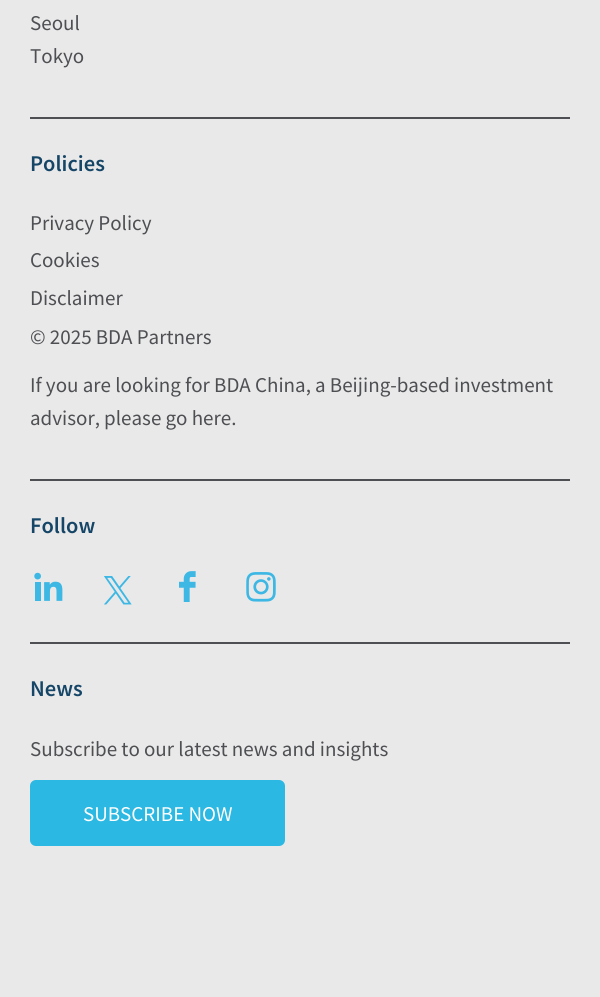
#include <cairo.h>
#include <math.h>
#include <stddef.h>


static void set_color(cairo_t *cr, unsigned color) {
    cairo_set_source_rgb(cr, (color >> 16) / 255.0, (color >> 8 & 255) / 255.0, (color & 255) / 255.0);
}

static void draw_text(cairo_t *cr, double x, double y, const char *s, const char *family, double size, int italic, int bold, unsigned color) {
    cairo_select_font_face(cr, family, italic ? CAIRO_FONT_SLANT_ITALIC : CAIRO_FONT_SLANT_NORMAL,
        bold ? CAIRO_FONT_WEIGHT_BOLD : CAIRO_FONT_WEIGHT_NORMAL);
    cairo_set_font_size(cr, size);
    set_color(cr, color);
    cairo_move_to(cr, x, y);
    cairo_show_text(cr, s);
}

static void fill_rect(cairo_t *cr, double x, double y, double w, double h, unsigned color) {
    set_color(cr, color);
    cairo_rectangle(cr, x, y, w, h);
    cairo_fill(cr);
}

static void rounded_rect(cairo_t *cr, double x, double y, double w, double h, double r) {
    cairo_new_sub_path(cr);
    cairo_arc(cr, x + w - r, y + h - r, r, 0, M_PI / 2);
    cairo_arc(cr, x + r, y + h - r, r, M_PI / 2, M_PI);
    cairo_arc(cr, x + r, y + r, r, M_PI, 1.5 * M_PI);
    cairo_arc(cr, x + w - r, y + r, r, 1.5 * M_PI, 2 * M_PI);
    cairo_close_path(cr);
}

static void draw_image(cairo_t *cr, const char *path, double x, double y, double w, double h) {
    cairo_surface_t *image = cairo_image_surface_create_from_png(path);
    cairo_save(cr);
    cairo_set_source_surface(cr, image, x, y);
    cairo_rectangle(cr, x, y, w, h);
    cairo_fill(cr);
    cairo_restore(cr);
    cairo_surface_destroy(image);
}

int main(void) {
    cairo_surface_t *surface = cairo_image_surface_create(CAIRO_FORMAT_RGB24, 600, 997);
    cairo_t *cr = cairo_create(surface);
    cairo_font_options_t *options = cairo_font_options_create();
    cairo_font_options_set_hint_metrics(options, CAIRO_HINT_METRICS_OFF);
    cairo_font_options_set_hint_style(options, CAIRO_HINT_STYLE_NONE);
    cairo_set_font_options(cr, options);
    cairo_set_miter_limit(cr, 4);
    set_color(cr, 0xEAE9E9);
    cairo_paint(cr);
    fill_rect(cr, 30, 117, 540, 2, 0x4D4F53);
    draw_text(cr, 30, 30, "Seoul", "Source Sans Pro", 21, 0, 0, 0x4D4F53);
    draw_text(cr, 30, 63, "Tokyo", "Source Sans Pro", 21, 0, 0, 0x4D4F53);
    fill_rect(cr, 30, 479, 540, 2, 0x4D4F53);
    draw_text(cr, 30, 171, "Policies", "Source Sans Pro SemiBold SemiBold", 22.5, 0, 0, 0x154667);
    draw_text(cr, 30, 230, "Privacy Policy", "Source Sans Pro", 21, 0, 0, 0x4D4F53);
    draw_text(cr, 30, 267, "Cookies", "Source Sans Pro", 21, 0, 0, 0x4D4F53);
    draw_text(cr, 30, 305, "Disclaimer", "Source Sans Pro", 21, 0, 0, 0x4D4F53);
    draw_text(cr, 30, 344, "© 2025 BDA Partners", "Source Sans Pro", 21, 0, 0, 0x4D4F53);
    draw_text(cr, 30, 392, "If you are looking for BDA China, a Beijing-based investment", "Source Sans Pro", 21, 0, 0, 0x4D4F53);
    draw_text(cr, 30, 425, "advisor, please go here.", "Source Sans Pro", 21, 0, 0, 0x4D4F53);
    fill_rect(cr, 30, 642, 540, 2, 0x4D4F53);
    draw_text(cr, 30, 533, "Follow", "Source Sans Pro SemiBold SemiBold", 22.5, 0, 0, 0x154667);
    draw_image(cr, "assets/img1.png", 34, 572, 29, 29);
    draw_image(cr, "assets/img2.png", 104, 576, 28, 29);
    draw_image(cr, "assets/img3.png", 179, 571, 17, 31);
    draw_image(cr, "assets/img4.png", 246, 572, 30, 30);
    draw_text(cr, 30, 696, "News", "Source Sans Pro SemiBold SemiBold", 22.5, 0, 0, 0x154667);
    draw_text(cr, 30, 756, "Subscribe to our latest news and insights", "Source Sans Pro", 21, 0, 0, 0x4D4F53);
    set_color(cr, 0x2BB8E2);
    rounded_rect(cr, 30, 780, 255, 66, 6);
    cairo_fill(cr);
    draw_text(cr, 83, 821, "SUBSCRIBE NOW", "Source Sans Pro", 21, 0, 0, 0xFFFFFF);
    cairo_surface_write_to_png(surface, "output.png");
    cairo_font_options_destroy(options);
    cairo_destroy(cr);
    cairo_surface_destroy(surface);
    return 0;
}
